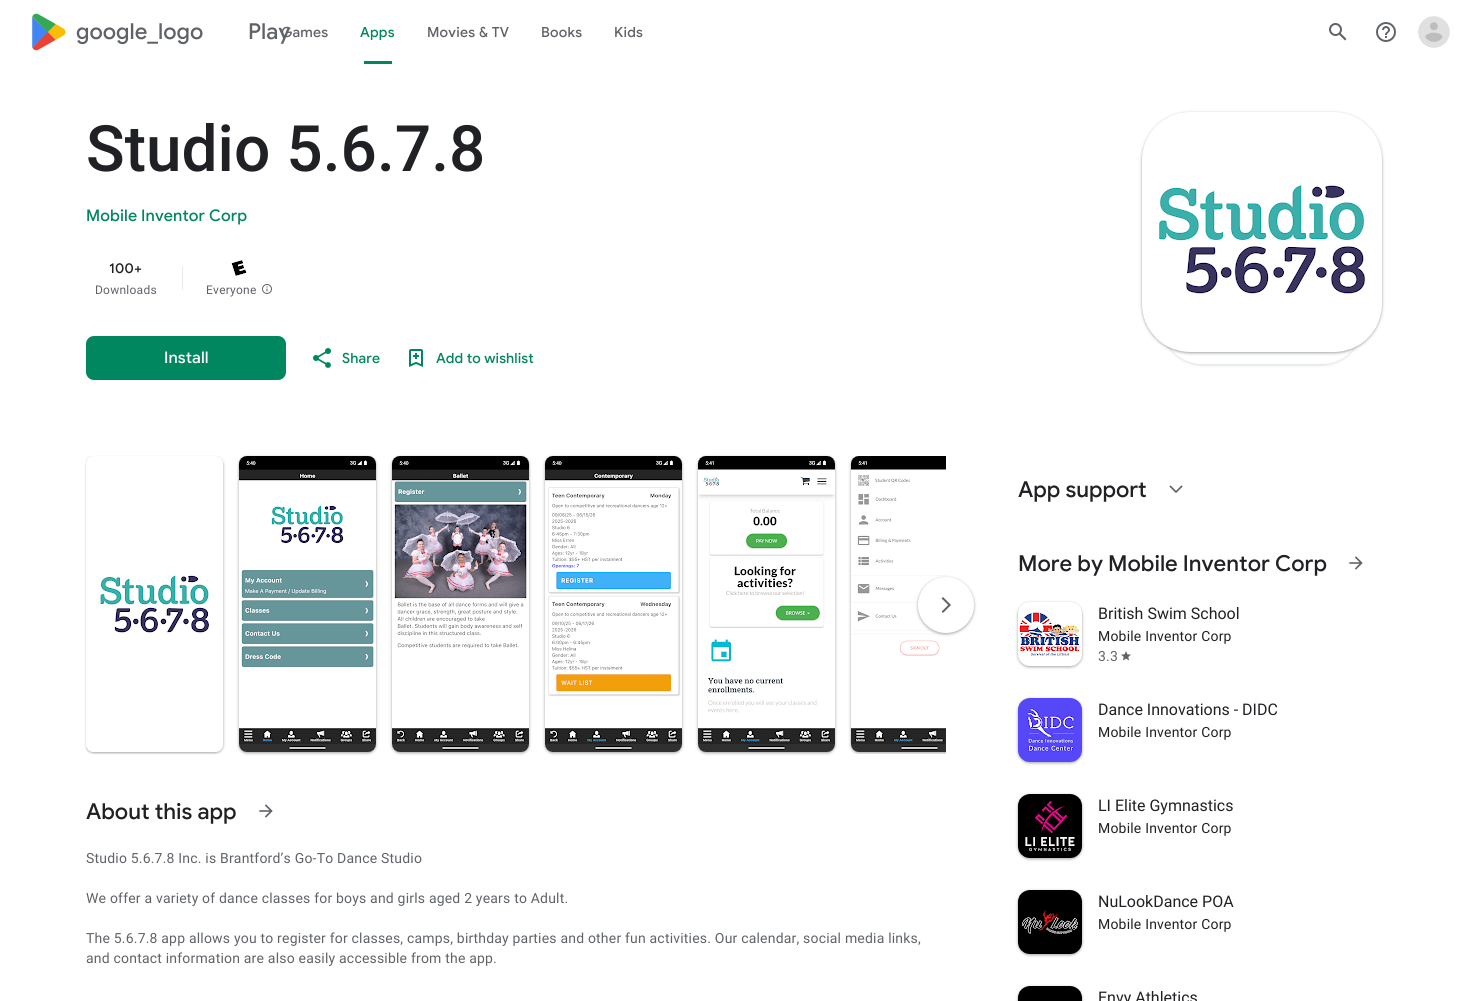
#include <cairo.h>
#include <math.h>
#include <stddef.h>


static void set_color(cairo_t *cr, unsigned color) {
    cairo_set_source_rgb(cr, (color >> 16) / 255.0, (color >> 8 & 255) / 255.0, (color & 255) / 255.0);
}

static void draw_text(cairo_t *cr, double x, double y, const char *s, const char *family, double size, int italic, int bold, unsigned color) {
    cairo_select_font_face(cr, family, italic ? CAIRO_FONT_SLANT_ITALIC : CAIRO_FONT_SLANT_NORMAL,
        bold ? CAIRO_FONT_WEIGHT_BOLD : CAIRO_FONT_WEIGHT_NORMAL);
    cairo_set_font_size(cr, size);
    set_color(cr, color);
    cairo_move_to(cr, x, y);
    cairo_show_text(cr, s);
}

static void draw_spaced(cairo_t *cr, double x, double y, const char *s, double letter, double word) {
    cairo_move_to(cr, x, y);
    while (*s) {
        char ch[5] = {0};
        int n = 0;
        do ch[n++] = *s++; while ((*s & 0xC0) == 0x80);
        cairo_show_text(cr, ch);
        cairo_rel_move_to(cr, letter + word * (*ch == ' '), 0);
    }
}

static void fill_rect(cairo_t *cr, double x, double y, double w, double h, unsigned color) {
    set_color(cr, color);
    cairo_rectangle(cr, x, y, w, h);
    cairo_fill(cr);
}

static void rounded_rect(cairo_t *cr, double x, double y, double w, double h, double r) {
    cairo_new_sub_path(cr);
    cairo_arc(cr, x + w - r, y + h - r, r, 0, M_PI / 2);
    cairo_arc(cr, x + r, y + h - r, r, M_PI / 2, M_PI);
    cairo_arc(cr, x + r, y + r, r, M_PI, 1.5 * M_PI);
    cairo_arc(cr, x + w - r, y + r, r, 1.5 * M_PI, 2 * M_PI);
    cairo_close_path(cr);
}

static void draw_shadow(cairo_t *cr, double x, double y, double w, double h, double r, double blur, double alpha) {
    cairo_push_group_with_content(cr, CAIRO_CONTENT_ALPHA);
    cairo_set_operator(cr, CAIRO_OPERATOR_SOURCE);
    for (int i = 15; i >= -15 && fmin(w, h) + blur * i / 3 > 0; i -= 2) {
        double e = blur * i / 6;
        cairo_set_source_rgba(cr, 0, 0, 0, alpha * erfc((i - 1) / 8.5) / 2);
        rounded_rect(cr, x - e, y - e, w + 2 * e, h + 2 * e, fmax(0, fmin(r + e + blur * .6, fmin(w, h) / 2 + e)));
        cairo_fill(cr);
    }
    cairo_pattern_t *soft = cairo_pop_group(cr);
    cairo_mask(cr, soft);
    cairo_pattern_destroy(soft);
}

static void draw_image(cairo_t *cr, const char *path, double x, double y, double w, double h) {
    cairo_surface_t *image = cairo_image_surface_create_from_png(path);
    cairo_save(cr);
    cairo_set_source_surface(cr, image, x, y);
    cairo_rectangle(cr, x, y, w, h);
    cairo_fill(cr);
    cairo_restore(cr);
    cairo_surface_destroy(image);
}

int main(void) {
    cairo_surface_t *surface = cairo_image_surface_create(CAIRO_FORMAT_RGB24, 1468, 1001);
    cairo_t *cr = cairo_create(surface);
    cairo_font_options_t *options = cairo_font_options_create();
    cairo_font_options_set_hint_metrics(options, CAIRO_HINT_METRICS_OFF);
    cairo_font_options_set_hint_style(options, CAIRO_HINT_STYLE_NONE);
    cairo_set_font_options(cr, options);
    cairo_set_miter_limit(cr, 4);
    set_color(cr, 0xFFFFFF);
    cairo_paint(cr);
    draw_image(cr, "assets/img1.png", 32, 13, 34, 38);
    cairo_select_font_face(cr, "Google Sans Medium", CAIRO_FONT_SLANT_NORMAL, CAIRO_FONT_WEIGHT_NORMAL);
    cairo_set_font_size(cr, 22);
    set_color(cr, 0x5F6368);
    draw_spaced(cr, 76, 39, "google_logo", 0, 55);
    draw_spaced(cr, 248, 39, "Play", 0, 55);
    cairo_set_font_size(cr, 14);
    draw_spaced(cr, 281, 37, "Games", 0.25, 0);
    set_color(cr, 0x01875F);
    draw_spaced(cr, 360, 37, "Apps", 0.25, 0);
    fill_rect(cr, 364, 61, 28, 3, 0x01875F);
    set_color(cr, 0x5F6368);
    draw_spaced(cr, 427, 37, "Movies & TV", 0.25, 0);
    draw_spaced(cr, 541, 37, "Books", 0.25, 0);
    draw_spaced(cr, 614, 37, "Kids", 0.25, 0);
    draw_image(cr, "assets/img2.png", 1329, 23, 18, 18);
    draw_image(cr, "assets/img3.png", 1376, 22, 20, 20);
    draw_image(cr, "assets/img4.png", 1418, 16, 32, 32);
    draw_text(cr, 86, 171, "Studio 5.6.7.8", "Roboto Medium", 64, 0, 0, 0x202124);
    cairo_select_font_face(cr, "Google Sans Medium", CAIRO_FONT_SLANT_NORMAL, CAIRO_FONT_WEIGHT_NORMAL);
    cairo_set_font_size(cr, 16);
    set_color(cr, 0x01875F);
    draw_spaced(cr, 86, 221, "Mobile Inventor Corp", 0.1, 0);
    cairo_set_font_size(cr, 14);
    set_color(cr, 0x202124);
    draw_spaced(cr, 109, 273, "100+", 0.25, 0);
    cairo_select_font_face(cr, "Roboto", CAIRO_FONT_SLANT_NORMAL, CAIRO_FONT_WEIGHT_NORMAL);
    cairo_set_font_size(cr, 12);
    set_color(cr, 0x5F6368);
    draw_spaced(cr, 95, 294, "Downloads", 0.25, 0);
    fill_rect(cr, 182, 266, 1, 24, 0xE8EAED);
    draw_image(cr, "assets/img5.png", 231, 260, 16, 16);
    set_color(cr, 0x5F6368);
    draw_spaced(cr, 206, 294, "Everyone", 0.25, 0);
    draw_image(cr, "assets/img6.png", 262, 284, 10, 10);
    cairo_save(cr);
    cairo_set_fill_rule(cr, CAIRO_FILL_RULE_EVEN_ODD);
    cairo_new_path(cr);
    cairo_move_to(cr, 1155, 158);
    cairo_line_to(cr, 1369, 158);
    cairo_line_to(cr, 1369, 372);
    cairo_line_to(cr, 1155, 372);
    cairo_close_path(cr);
    cairo_move_to(cr, 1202, 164);
    cairo_line_to(cr, 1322, 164);
    cairo_curve_to(cr, 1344, 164, 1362, 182, 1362, 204);
    cairo_line_to(cr, 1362, 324);
    cairo_curve_to(cr, 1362, 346, 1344, 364, 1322, 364);
    cairo_line_to(cr, 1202, 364);
    cairo_curve_to(cr, 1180, 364, 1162, 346, 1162, 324);
    cairo_line_to(cr, 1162, 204);
    cairo_curve_to(cr, 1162, 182, 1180, 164, 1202, 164);
    cairo_close_path(cr);
    cairo_clip(cr);
    set_color(cr, 0x9EA0A1);
    draw_shadow(cr, 1161, 164, 202, 202, 41, 1.5, 0.15);
    cairo_restore(cr);
    cairo_save(cr);
    cairo_set_fill_rule(cr, CAIRO_FILL_RULE_EVEN_ODD);
    cairo_new_path(cr);
    cairo_move_to(cr, 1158, 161);
    cairo_line_to(cr, 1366, 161);
    cairo_line_to(cr, 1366, 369);
    cairo_line_to(cr, 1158, 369);
    cairo_close_path(cr);
    cairo_move_to(cr, 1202, 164);
    cairo_line_to(cr, 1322, 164);
    cairo_curve_to(cr, 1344, 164, 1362, 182, 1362, 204);
    cairo_line_to(cr, 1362, 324);
    cairo_curve_to(cr, 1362, 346, 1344, 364, 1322, 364);
    cairo_line_to(cr, 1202, 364);
    cairo_curve_to(cr, 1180, 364, 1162, 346, 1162, 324);
    cairo_line_to(cr, 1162, 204);
    cairo_curve_to(cr, 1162, 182, 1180, 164, 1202, 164);
    cairo_close_path(cr);
    cairo_clip(cr);
    set_color(cr, 0x9EA0A1);
    draw_shadow(cr, 1162, 165, 200, 200, 40, 1, 0.3);
    cairo_restore(cr);
    draw_image(cr, "assets/img8.png", 1161, 342, 202, 23);
    set_color(cr, 0x3C4043);
    draw_shadow(cr, 1141, 112, 242, 242, 49, 1.5, 0.15);
    draw_shadow(cr, 1142, 113, 240, 240, 48, 1, 0.3);
    draw_image(cr, "assets/img7.png", 1142, 112, 240, 240);
    set_color(cr, 0x01875F);
    rounded_rect(cr, 86, 336, 200, 44, 8);
    cairo_fill(cr);
    cairo_select_font_face(cr, "Google Sans Medium", CAIRO_FONT_SLANT_NORMAL, CAIRO_FONT_WEIGHT_NORMAL);
    cairo_set_font_size(cr, 16);
    set_color(cr, 0xFFFFFF);
    draw_spaced(cr, 164, 363, "Install", 0.1, 0);
    draw_image(cr, "assets/img9.png", 313, 348, 18, 20);
    cairo_set_font_size(cr, 14);
    set_color(cr, 0x01875F);
    draw_spaced(cr, 342, 363, "Share", 0.1, 0);
    draw_image(cr, "assets/img10.png", 409, 349, 14, 18);
    draw_spaced(cr, 436, 363, "Add to wishlist", 0.1, 0);
    cairo_save(cr);
    cairo_rectangle(cr, 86, 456, 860, 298);
    cairo_clip(cr);
    set_color(cr, 0x3C4043);
    draw_shadow(cr, 85, 456, 139, 298, 9, 1.5, 0.15);
    cairo_restore(cr);
    cairo_save(cr);
    cairo_set_fill_rule(cr, CAIRO_FILL_RULE_EVEN_ODD);
    cairo_new_path(cr);
    cairo_move_to(cr, 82, 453);
    cairo_line_to(cr, 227, 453);
    cairo_line_to(cr, 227, 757);
    cairo_line_to(cr, 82, 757);
    cairo_close_path(cr);
    cairo_move_to(cr, 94, 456);
    cairo_line_to(cr, 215, 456);
    cairo_curve_to(cr, 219.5, 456, 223, 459.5, 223, 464);
    cairo_line_to(cr, 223, 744);
    cairo_curve_to(cr, 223, 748.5, 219.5, 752, 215, 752);
    cairo_line_to(cr, 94, 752);
    cairo_curve_to(cr, 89.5, 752, 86, 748.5, 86, 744);
    cairo_line_to(cr, 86, 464);
    cairo_curve_to(cr, 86, 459.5, 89.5, 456, 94, 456);
    cairo_close_path(cr);
    cairo_clip(cr);
    set_color(cr, 0x3C4043);
    draw_shadow(cr, 86, 457, 137, 296, 8, 1, 0.3);
    cairo_restore(cr);
    draw_image(cr, "assets/img11.png", 86, 456, 137, 296);
    cairo_save(cr);
    cairo_set_fill_rule(cr, CAIRO_FILL_RULE_EVEN_ODD);
    cairo_new_path(cr);
    cairo_move_to(cr, 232, 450);
    cairo_line_to(cr, 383, 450);
    cairo_line_to(cr, 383, 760);
    cairo_line_to(cr, 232, 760);
    cairo_close_path(cr);
    cairo_move_to(cr, 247, 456);
    cairo_line_to(cr, 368, 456);
    cairo_curve_to(cr, 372.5, 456, 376, 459.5, 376, 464);
    cairo_line_to(cr, 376, 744);
    cairo_curve_to(cr, 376, 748.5, 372.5, 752, 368, 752);
    cairo_line_to(cr, 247, 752);
    cairo_curve_to(cr, 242.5, 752, 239, 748.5, 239, 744);
    cairo_line_to(cr, 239, 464);
    cairo_curve_to(cr, 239, 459.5, 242.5, 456, 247, 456);
    cairo_close_path(cr);
    cairo_clip(cr);
    set_color(cr, 0x3C4043);
    draw_shadow(cr, 238, 456, 139, 298, 9, 1.5, 0.15);
    cairo_restore(cr);
    set_color(cr, 0x3C4043);
    draw_shadow(cr, 239, 457, 137, 296, 8, 1, 0.3);
    draw_image(cr, "assets/img12.png", 239, 456, 137, 296);
    cairo_save(cr);
    cairo_set_fill_rule(cr, CAIRO_FILL_RULE_EVEN_ODD);
    cairo_new_path(cr);
    cairo_move_to(cr, 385, 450);
    cairo_line_to(cr, 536, 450);
    cairo_line_to(cr, 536, 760);
    cairo_line_to(cr, 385, 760);
    cairo_close_path(cr);
    cairo_move_to(cr, 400, 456);
    cairo_line_to(cr, 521, 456);
    cairo_curve_to(cr, 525.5, 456, 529, 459.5, 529, 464);
    cairo_line_to(cr, 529, 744);
    cairo_curve_to(cr, 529, 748.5, 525.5, 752, 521, 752);
    cairo_line_to(cr, 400, 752);
    cairo_curve_to(cr, 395.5, 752, 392, 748.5, 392, 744);
    cairo_line_to(cr, 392, 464);
    cairo_curve_to(cr, 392, 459.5, 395.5, 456, 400, 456);
    cairo_close_path(cr);
    cairo_clip(cr);
    draw_shadow(cr, 391, 456, 139, 298, 9, 1.5, 0.15);
    cairo_restore(cr);
    draw_shadow(cr, 392, 457, 137, 296, 8, 1, 0.3);
    draw_image(cr, "assets/img13.png", 392, 456, 137, 296);
    cairo_save(cr);
    cairo_set_fill_rule(cr, CAIRO_FILL_RULE_EVEN_ODD);
    cairo_new_path(cr);
    cairo_move_to(cr, 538, 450);
    cairo_line_to(cr, 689, 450);
    cairo_line_to(cr, 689, 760);
    cairo_line_to(cr, 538, 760);
    cairo_close_path(cr);
    cairo_move_to(cr, 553, 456);
    cairo_line_to(cr, 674, 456);
    cairo_curve_to(cr, 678.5, 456, 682, 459.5, 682, 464);
    cairo_line_to(cr, 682, 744);
    cairo_curve_to(cr, 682, 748.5, 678.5, 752, 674, 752);
    cairo_line_to(cr, 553, 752);
    cairo_curve_to(cr, 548.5, 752, 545, 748.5, 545, 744);
    cairo_line_to(cr, 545, 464);
    cairo_curve_to(cr, 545, 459.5, 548.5, 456, 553, 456);
    cairo_close_path(cr);
    cairo_clip(cr);
    draw_shadow(cr, 544, 456, 139, 298, 9, 1.5, 0.15);
    cairo_restore(cr);
    draw_shadow(cr, 545, 457, 137, 296, 8, 1, 0.3);
    draw_image(cr, "assets/img14.png", 545, 456, 137, 296);
    cairo_save(cr);
    cairo_set_fill_rule(cr, CAIRO_FILL_RULE_EVEN_ODD);
    cairo_new_path(cr);
    cairo_move_to(cr, 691, 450);
    cairo_line_to(cr, 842, 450);
    cairo_line_to(cr, 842, 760);
    cairo_line_to(cr, 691, 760);
    cairo_close_path(cr);
    cairo_move_to(cr, 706, 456);
    cairo_line_to(cr, 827, 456);
    cairo_curve_to(cr, 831.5, 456, 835, 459.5, 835, 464);
    cairo_line_to(cr, 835, 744);
    cairo_curve_to(cr, 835, 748.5, 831.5, 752, 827, 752);
    cairo_line_to(cr, 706, 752);
    cairo_curve_to(cr, 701.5, 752, 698, 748.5, 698, 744);
    cairo_line_to(cr, 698, 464);
    cairo_curve_to(cr, 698, 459.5, 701.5, 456, 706, 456);
    cairo_close_path(cr);
    cairo_clip(cr);
    draw_shadow(cr, 697, 456, 139, 298, 9, 1.5, 0.15);
    cairo_restore(cr);
    draw_shadow(cr, 698, 457, 137, 296, 8, 1, 0.3);
    draw_image(cr, "assets/img15.png", 698, 456, 137, 296);
    cairo_save(cr);
    cairo_rectangle(cr, 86, 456, 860, 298);
    cairo_clip(cr);
    draw_shadow(cr, 850, 456, 139, 298, 9, 1.5, 0.15);
    draw_shadow(cr, 851, 457, 137, 296, 8, 1, 0.3);
    cairo_restore(cr);
    draw_image(cr, "assets/img16.png", 851, 456, 95, 296);
    draw_shadow(cr, 917, 577, 58, 58, 29, 1.5, 0.15);
    draw_shadow(cr, 918, 578, 56, 56, 28, 1, 0.3);
    set_color(cr, 0xFFFFFF);
    cairo_arc(cr, 946, 605, 28, 0, 2 * M_PI);
    cairo_fill(cr);
    draw_image(cr, "assets/img17.png", 941, 597, 10, 16);
    draw_text(cr, 86, 819, "About this app", "Google Sans Medium", 22, 0, 0, 0x202124);
    draw_image(cr, "assets/img18.png", 259, 804, 14, 14);
    cairo_select_font_face(cr, "Roboto", CAIRO_FONT_SLANT_NORMAL, CAIRO_FONT_WEIGHT_NORMAL);
    cairo_set_font_size(cr, 14);
    set_color(cr, 0x5F6368);
    draw_spaced(cr, 86, 863, "Studio 5.6.7.8 Inc. is Brantford’s Go-To Dance Studio", 0.2, 0);
    draw_spaced(cr, 86, 903, "We offer a variety of dance classes for boys and girls aged 2 years to Adult.", 0.2, 0);
    draw_spaced(cr, 86, 943, "The 5.6.7.8 app allows you to register for classes, camps, birthday parties and other fun activities. Our calendar, social media links,", 0.2, 0);
    draw_spaced(cr, 86, 963, "and contact information are also easily accessible from the app.", 0.2, 0);
    draw_text(cr, 1018, 497, "App support", "Google Sans Medium", 22, 0, 0, 0x202124);
    draw_image(cr, "assets/img19.png", 1169, 485, 14, 8);
    draw_text(cr, 1018, 571, "More by Mobile Inventor Corp", "Google Sans Medium", 22, 0, 0, 0x202124);
    draw_image(cr, "assets/img18.png", 1349, 556, 14, 14);
    set_color(cr, 0x3C4043);
    draw_shadow(cr, 1017, 602, 66, 66, 13, 1.5, 0.15);
    draw_shadow(cr, 1018, 603, 64, 64, 12, 1, 0.3);
    draw_image(cr, "assets/img20.png", 1018, 602, 64, 64);
    draw_text(cr, 1098, 619, "British Swim School", "Roboto", 16, 0, 0, 0x202124);
    cairo_set_font_size(cr, 14);
    draw_spaced(cr, 1098, 641, "Mobile Inventor Corp", 0.2, 0);
    set_color(cr, 0x5F6368);
    draw_spaced(cr, 1098, 661, "3.3", 0.2, 0);
    draw_image(cr, "assets/img21.png", 1121, 651, 10, 10);
    set_color(cr, 0x3C4043);
    draw_shadow(cr, 1017, 698, 66, 66, 13, 1.5, 0.15);
    draw_shadow(cr, 1018, 699, 64, 64, 12, 1, 0.3);
    draw_image(cr, "assets/img22.png", 1018, 698, 64, 64);
    draw_text(cr, 1098, 715, "Dance Innovations - DIDC", "Roboto", 16, 0, 0, 0x202124);
    cairo_set_font_size(cr, 14);
    draw_spaced(cr, 1098, 737, "Mobile Inventor Corp", 0.2, 0);
    set_color(cr, 0x3C4043);
    draw_shadow(cr, 1017, 794, 66, 66, 13, 1.5, 0.15);
    draw_shadow(cr, 1018, 795, 64, 64, 12, 1, 0.3);
    draw_image(cr, "assets/img23.png", 1018, 794, 64, 64);
    draw_text(cr, 1098, 811, "LI Elite Gymnastics", "Roboto", 16, 0, 0, 0x202124);
    cairo_set_font_size(cr, 14);
    draw_spaced(cr, 1098, 833, "Mobile Inventor Corp", 0.2, 0);
    set_color(cr, 0x3C4043);
    draw_shadow(cr, 1017, 890, 66, 66, 13, 1.5, 0.15);
    draw_shadow(cr, 1018, 891, 64, 64, 12, 1, 0.3);
    draw_image(cr, "assets/img24.png", 1018, 890, 64, 64);
    draw_text(cr, 1098, 907, "NuLookDance POA", "Roboto", 16, 0, 0, 0x202124);
    cairo_set_font_size(cr, 14);
    draw_spaced(cr, 1098, 929, "Mobile Inventor Corp", 0.2, 0);
    set_color(cr, 0x3C4043);
    draw_shadow(cr, 1017, 986, 66, 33, 13, 1.5, 0.15);
    draw_shadow(cr, 1018, 987, 64, 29, 12, 1, 0.3);
    draw_image(cr, "assets/img25.png", 1018, 986, 64, 15);
    draw_text(cr, 1098, 1003, "Envy Athletics", "Roboto", 16, 0, 0, 0x202124);
    cairo_surface_write_to_png(surface, "output.png");
    cairo_font_options_destroy(options);
    cairo_destroy(cr);
    cairo_surface_destroy(surface);
    return 0;
}
